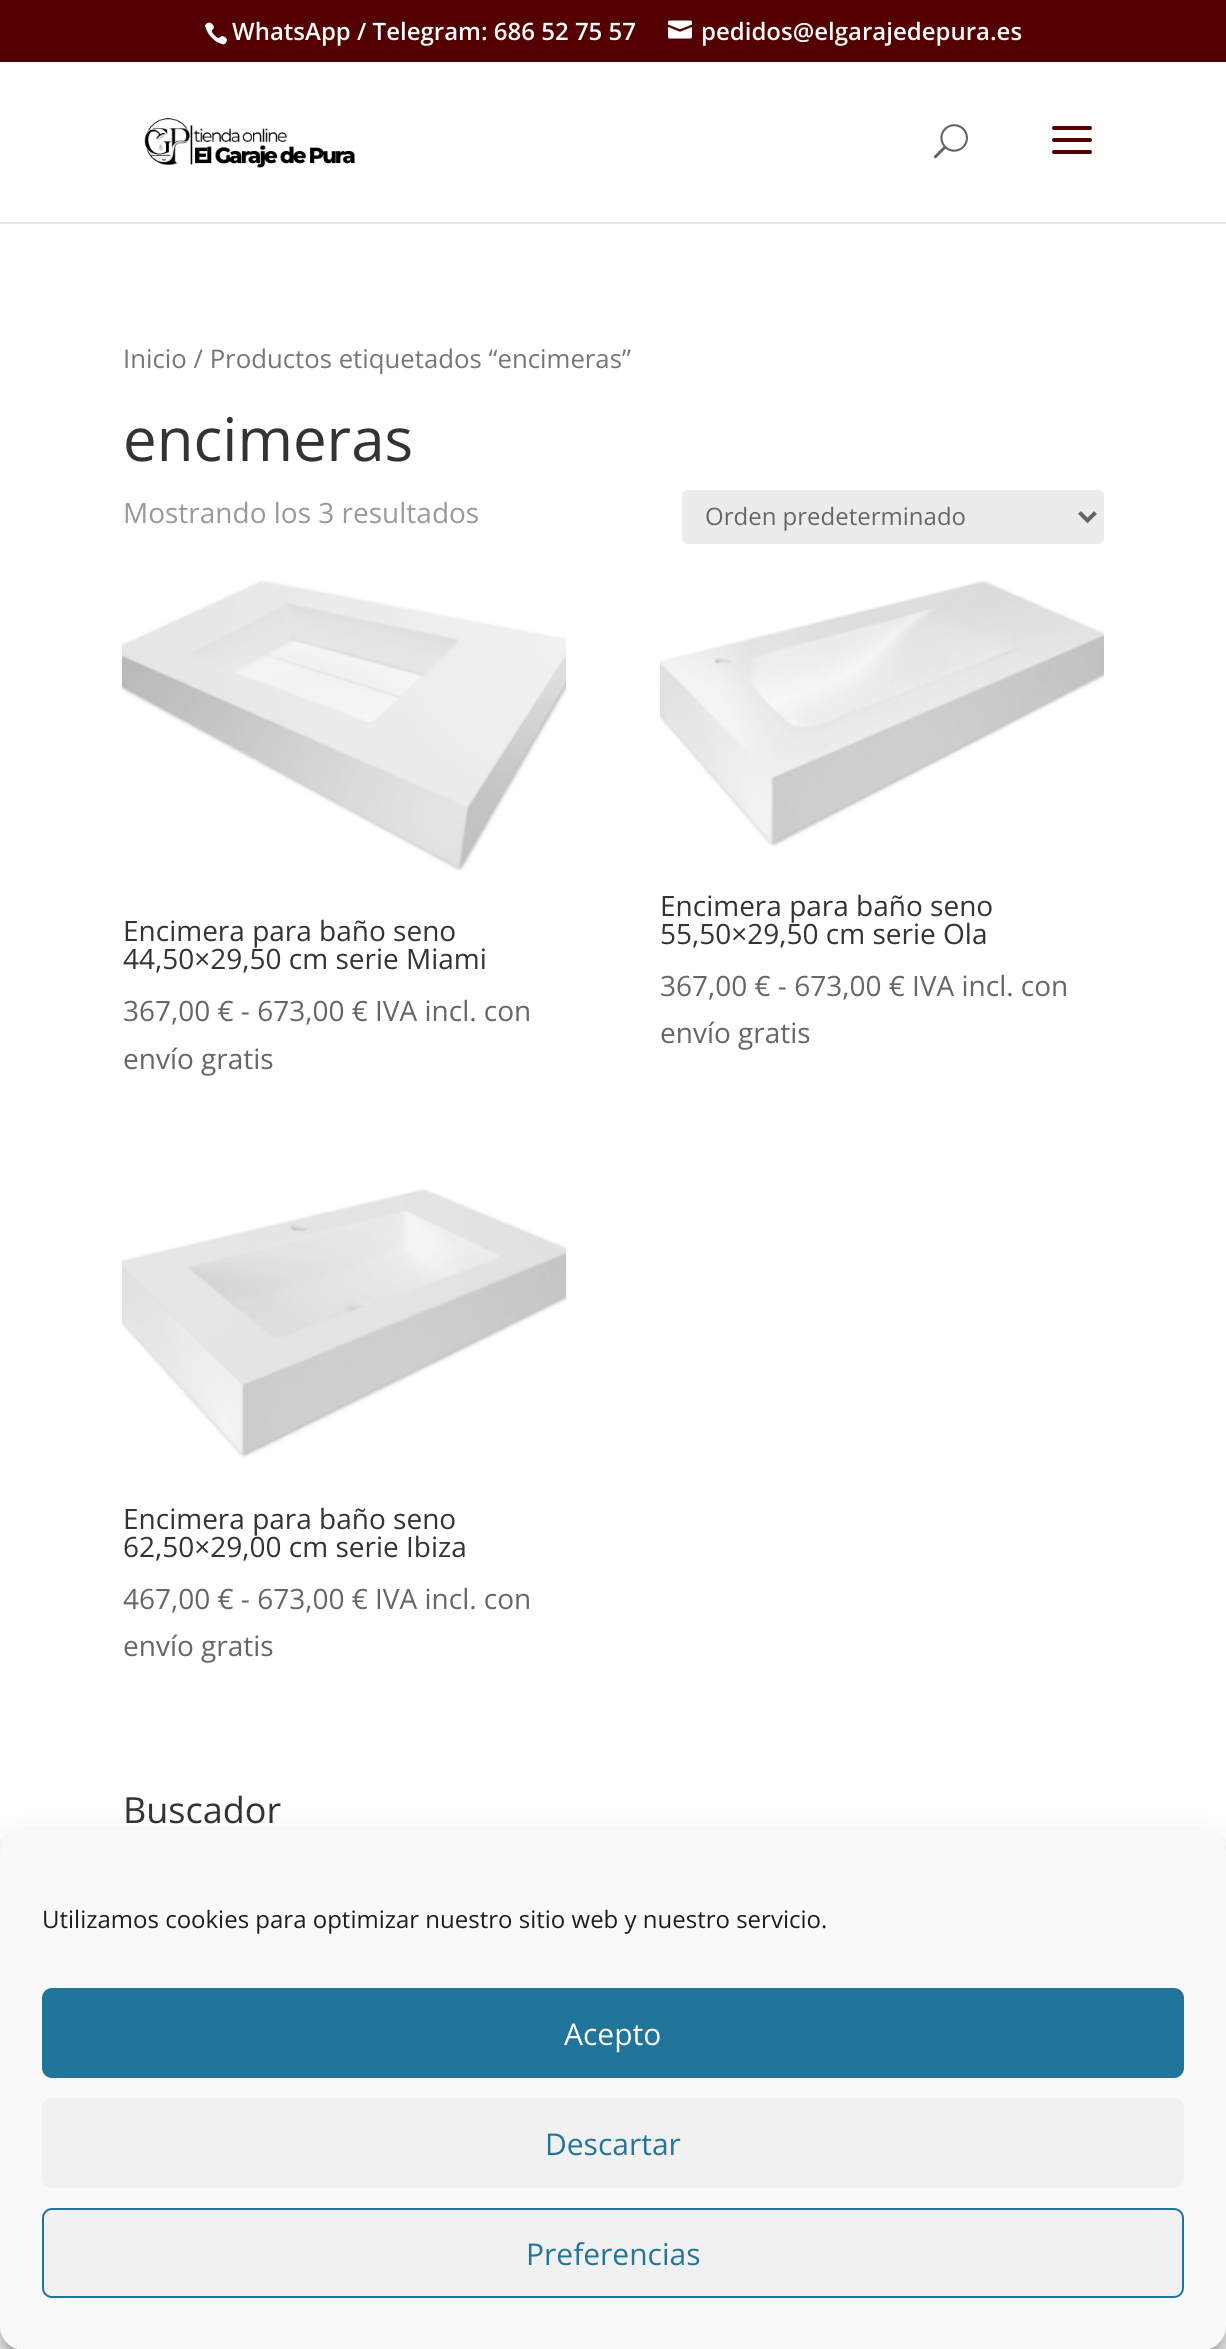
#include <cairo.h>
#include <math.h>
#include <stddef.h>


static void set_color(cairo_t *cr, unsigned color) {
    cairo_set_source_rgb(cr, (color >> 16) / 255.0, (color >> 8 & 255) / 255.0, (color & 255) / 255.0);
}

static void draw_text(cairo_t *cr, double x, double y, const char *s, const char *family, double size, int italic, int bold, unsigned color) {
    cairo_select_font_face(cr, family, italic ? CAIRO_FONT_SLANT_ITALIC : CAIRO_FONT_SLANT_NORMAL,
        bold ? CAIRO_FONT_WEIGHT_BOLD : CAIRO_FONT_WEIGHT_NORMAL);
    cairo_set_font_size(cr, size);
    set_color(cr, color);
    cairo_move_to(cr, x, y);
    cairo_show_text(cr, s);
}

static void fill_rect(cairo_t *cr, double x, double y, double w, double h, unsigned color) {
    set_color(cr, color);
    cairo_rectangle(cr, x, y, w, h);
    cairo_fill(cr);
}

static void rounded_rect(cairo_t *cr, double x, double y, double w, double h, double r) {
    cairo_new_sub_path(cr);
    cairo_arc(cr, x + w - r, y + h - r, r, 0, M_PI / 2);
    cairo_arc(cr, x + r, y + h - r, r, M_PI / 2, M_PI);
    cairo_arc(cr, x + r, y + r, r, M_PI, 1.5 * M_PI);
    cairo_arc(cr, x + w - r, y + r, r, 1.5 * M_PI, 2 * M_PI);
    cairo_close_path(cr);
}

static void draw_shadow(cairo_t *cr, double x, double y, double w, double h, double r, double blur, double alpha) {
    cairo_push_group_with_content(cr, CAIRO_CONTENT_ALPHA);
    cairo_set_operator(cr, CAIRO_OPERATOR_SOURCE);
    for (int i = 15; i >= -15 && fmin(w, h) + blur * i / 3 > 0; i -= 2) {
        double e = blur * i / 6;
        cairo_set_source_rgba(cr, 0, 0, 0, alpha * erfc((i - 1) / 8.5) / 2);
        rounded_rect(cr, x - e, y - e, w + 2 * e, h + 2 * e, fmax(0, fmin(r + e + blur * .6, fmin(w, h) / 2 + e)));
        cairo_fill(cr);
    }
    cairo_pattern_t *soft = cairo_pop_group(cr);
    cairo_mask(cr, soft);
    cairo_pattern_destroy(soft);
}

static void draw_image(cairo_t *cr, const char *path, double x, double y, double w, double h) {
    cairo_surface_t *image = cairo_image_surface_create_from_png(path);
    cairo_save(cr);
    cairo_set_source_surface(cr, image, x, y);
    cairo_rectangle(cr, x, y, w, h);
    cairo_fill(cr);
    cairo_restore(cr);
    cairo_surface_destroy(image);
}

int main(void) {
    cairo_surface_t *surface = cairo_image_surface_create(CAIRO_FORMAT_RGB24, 1226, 2349);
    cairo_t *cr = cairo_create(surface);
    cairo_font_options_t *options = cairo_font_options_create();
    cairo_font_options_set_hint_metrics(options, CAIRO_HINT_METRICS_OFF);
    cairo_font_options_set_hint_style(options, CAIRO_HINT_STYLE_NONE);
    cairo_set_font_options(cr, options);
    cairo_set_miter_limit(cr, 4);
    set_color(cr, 0xFFFFFF);
    cairo_paint(cr);
    fill_rect(cr, 0, 0, 1226, 62, 0x550000);
    draw_image(cr, "assets/img1.png", 205, 22, 22, 23);
    draw_text(cr, 232, 40, "WhatsApp / Telegram: 686 52 75 57", "Open Sans SemiBold", 24, 0, 0, 0xFFFFFF);
    draw_image(cr, "assets/img2.png", 668, 20, 24, 19);
    draw_text(cr, 701, 40, "pedidos@elgarajedepura.es", "Open Sans SemiBold", 24, 0, 0, 0xFFFFFF);
    fill_rect(cr, 0, 222, 1226, 2, 0xE6E6E6);
    draw_image(cr, "assets/img3.png", 144, 118, 211, 50);
    draw_image(cr, "assets/img4.png", 933, 124, 35, 35);
    draw_image(cr, "assets/img5.png", 1052, 126, 40, 28);
    draw_text(cr, 123, 368, "Inicio / Productos etiquetados “encimeras”", "Open Sans", 25.75, 0, 0, 0x767676);
    draw_text(cr, 123, 461, "encimeras", "Open Sans", 60, 0, 0, 0x333333);
    draw_text(cr, 123, 523, "Mostrando los 3 resultados", "Open Sans", 28, 0, 0, 0x999999);
    set_color(cr, 0xECECEC);
    rounded_rect(cr, 682, 490, 422, 54, 6);
    cairo_fill(cr);
    cairo_new_path(cr);
    cairo_move_to(cr, 1079.5, 512.5);
    cairo_line_to(cr, 1087.5, 520.5);
    cairo_line_to(cr, 1095.5, 512.5);
    set_color(cr, 0x666666);
    cairo_set_line_width(cr, 4);
    cairo_stroke(cr);
    draw_text(cr, 705, 525, "Orden predeterminado", "Open Sans", 24, 0, 0, 0x666666);
    draw_image(cr, "assets/img6.png", 122, 580, 444, 291);
    draw_text(cr, 123, 941, "Encimera para baño seno", "Open Sans", 28, 0, 0, 0x333333);
    draw_text(cr, 123, 969, "44,50×29,50 cm serie Miami", "Open Sans", 28, 0, 0, 0x333333);
    draw_text(cr, 123, 1021, "367,00 € - 673,00 € IVA incl. con", "Open Sans", 28, 0, 0, 0x666666);
    draw_text(cr, 123, 1069, "envío gratis", "Open Sans", 28, 0, 0, 0x666666);
    draw_image(cr, "assets/img7.png", 660, 580, 444, 267);
    draw_text(cr, 660, 916, "Encimera para baño seno", "Open Sans", 28, 0, 0, 0x333333);
    draw_text(cr, 660, 944, "55,50×29,50 cm serie Ola", "Open Sans", 28, 0, 0, 0x333333);
    draw_text(cr, 660, 996, "367,00 € - 673,00 € IVA incl. con", "Open Sans", 28, 0, 0, 0x666666);
    draw_text(cr, 660, 1043, "envío gratis", "Open Sans", 28, 0, 0, 0x666666);
    draw_image(cr, "assets/img8.png", 122, 1189, 444, 269);
    draw_text(cr, 123, 1529, "Encimera para baño seno", "Open Sans", 28, 0, 0, 0x333333);
    draw_text(cr, 123, 1557, "62,50×29,00 cm serie Ibiza", "Open Sans", 28, 0, 0, 0x333333);
    draw_text(cr, 123, 1609, "467,00 € - 673,00 € IVA incl. con", "Open Sans", 28, 0, 0, 0x666666);
    draw_text(cr, 123, 1656, "envío gratis", "Open Sans", 28, 0, 0, 0x666666);
    draw_text(cr, 123, 1823, "Buscador", "Open Sans", 36, 0, 0, 0x333333);
    set_color(cr, 0x000000);
    draw_shadow(cr, 0, 1842, 1226, 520, 24, 6, 0.23);
    draw_shadow(cr, 0, 1850, 1226, 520, 24, 20, 0.19);
    set_color(cr, 0xF9F9F9);
    rounded_rect(cr, 1, 1831, 1224, 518, 23);
    cairo_fill_preserve(cr);
    cairo_set_line_width(cr, 2);
    cairo_stroke(cr);
    draw_text(cr, 42, 1928, "Utilizamos cookies para optimizar nuestro sitio web y nuestro servicio.", "Open Sans", 24, 0, 0, 0x191E23);
    set_color(cr, 0x21759B);
    rounded_rect(cr, 43, 1989, 1140, 88, 9);
    cairo_fill_preserve(cr);
    cairo_stroke(cr);
    draw_text(cr, 564, 2045, "Acepto", "Open Sans", 30, 0, 0, 0xFFFFFF);
    set_color(cr, 0xF1F1F1);
    rounded_rect(cr, 42, 2098, 1142, 90, 10);
    cairo_fill(cr);
    draw_text(cr, 545, 2155, "Descartar", "Open Sans", 30, 0, 0, 0x21759B);
    set_color(cr, 0xF1F1F1);
    rounded_rect(cr, 43, 2209, 1140, 88, 9);
    cairo_fill_preserve(cr);
    set_color(cr, 0x21759B);
    cairo_stroke(cr);
    draw_text(cr, 526, 2265, "Preferencias", "Open Sans", 30, 0, 0, 0x21759B);
    cairo_surface_write_to_png(surface, "output.png");
    cairo_font_options_destroy(options);
    cairo_destroy(cr);
    cairo_surface_destroy(surface);
    return 0;
}
